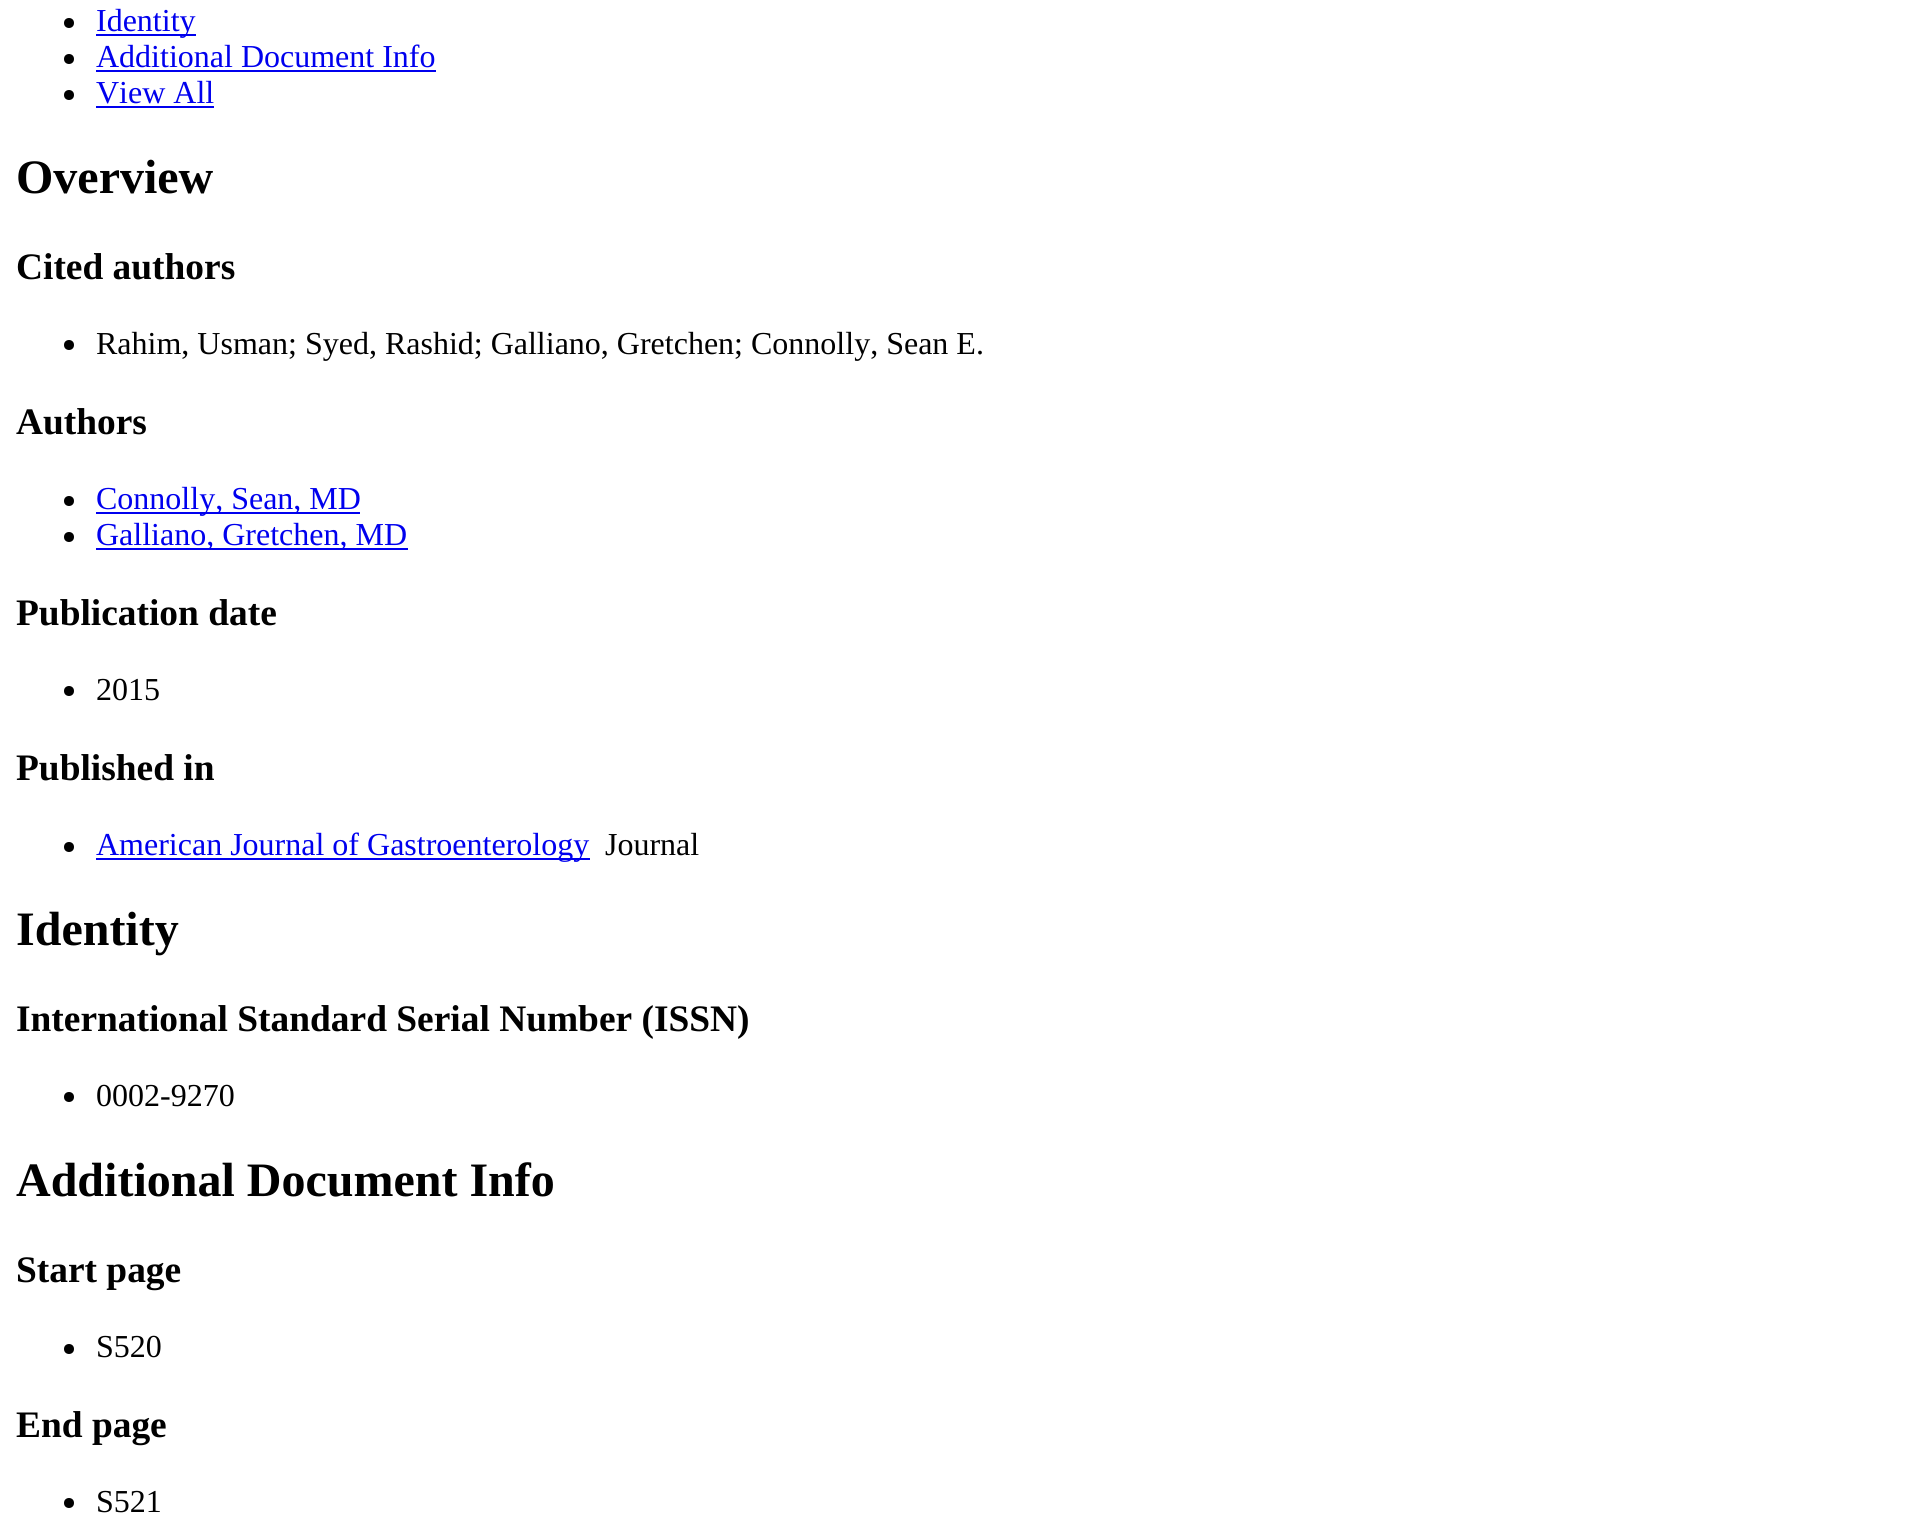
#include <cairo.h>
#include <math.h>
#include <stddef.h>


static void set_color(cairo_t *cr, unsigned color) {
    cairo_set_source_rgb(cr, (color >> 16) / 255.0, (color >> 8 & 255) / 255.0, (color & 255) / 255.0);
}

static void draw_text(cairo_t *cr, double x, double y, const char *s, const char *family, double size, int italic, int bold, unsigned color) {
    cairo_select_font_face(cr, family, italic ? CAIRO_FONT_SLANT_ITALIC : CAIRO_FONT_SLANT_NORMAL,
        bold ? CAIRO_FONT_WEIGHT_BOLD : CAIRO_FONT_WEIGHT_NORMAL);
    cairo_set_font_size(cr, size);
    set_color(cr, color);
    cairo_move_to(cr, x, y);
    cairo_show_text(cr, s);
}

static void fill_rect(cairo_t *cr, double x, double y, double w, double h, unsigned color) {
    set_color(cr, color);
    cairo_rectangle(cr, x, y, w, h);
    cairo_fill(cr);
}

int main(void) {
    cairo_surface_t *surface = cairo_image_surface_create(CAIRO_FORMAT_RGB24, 1913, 1513);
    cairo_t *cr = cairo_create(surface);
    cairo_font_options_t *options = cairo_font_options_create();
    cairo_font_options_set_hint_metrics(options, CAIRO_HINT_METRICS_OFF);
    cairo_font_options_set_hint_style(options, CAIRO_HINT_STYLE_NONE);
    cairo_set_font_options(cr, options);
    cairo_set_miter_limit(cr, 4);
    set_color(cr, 0xFFFFFF);
    cairo_paint(cr);
    set_color(cr, 0x000000);
    cairo_arc(cr, 69, 23, 5, 0, 2 * M_PI);
    cairo_fill(cr);
    fill_rect(cr, 96, 34, 100, 2, 0x0000EE);
    draw_text(cr, 96, 31, "Identity", "Liberation Serif", 32, 0, 0, 0x0000EE);
    set_color(cr, 0x000000);
    cairo_new_path(cr);
    cairo_arc(cr, 69, 59, 5, 0, 2 * M_PI);
    cairo_fill(cr);
    draw_text(cr, 96, 67, "Additional Document Info", "Liberation Serif", 32, 0, 0, 0x0000EE);
    fill_rect(cr, 96, 70, 340, 2, 0x0000EE);
    set_color(cr, 0x000000);
    cairo_new_path(cr);
    cairo_arc(cr, 69, 95, 5, 0, 2 * M_PI);
    cairo_fill(cr);
    draw_text(cr, 96, 103, "View All", "Liberation Serif", 32, 0, 0, 0x0000EE);
    fill_rect(cr, 96, 106, 118, 2, 0x0000EE);
    draw_text(cr, 16, 193, "Overview", "Liberation Serif", 48, 0, 1, 0x000000);
    draw_text(cr, 16, 279, "Cited authors", "Liberation Serif", 37.4, 0, 1, 0x000000);
    cairo_new_path(cr);
    cairo_arc(cr, 69, 345, 5, 0, 2 * M_PI);
    cairo_fill(cr);
    draw_text(cr, 96, 354, "Rahim, Usman; Syed, Rashid; Galliano, Gretchen; Connolly, Sean E.", "Liberation Serif", 32, 0, 0, 0x000000);
    draw_text(cr, 16, 434, "Authors", "Liberation Serif", 37.4, 0, 1, 0x000000);
    cairo_new_path(cr);
    cairo_arc(cr, 69, 501, 5, 0, 2 * M_PI);
    cairo_fill(cr);
    fill_rect(cr, 96, 512, 264, 2, 0x0000EE);
    draw_text(cr, 96, 509, "Connolly, Sean, MD", "Liberation Serif", 32, 0, 0, 0x0000EE);
    set_color(cr, 0x000000);
    cairo_new_path(cr);
    cairo_arc(cr, 69, 537, 5, 0, 2 * M_PI);
    cairo_fill(cr);
    fill_rect(cr, 96, 548, 312, 2, 0x0000EE);
    draw_text(cr, 96, 545, "Galliano, Gretchen, MD", "Liberation Serif", 32, 0, 0, 0x0000EE);
    draw_text(cr, 16, 625, "Publication date", "Liberation Serif", 37.4, 0, 1, 0x000000);
    cairo_new_path(cr);
    cairo_arc(cr, 69, 691, 5, 0, 2 * M_PI);
    cairo_fill(cr);
    draw_text(cr, 96, 700, "2015", "Liberation Serif", 32, 0, 0, 0x000000);
    draw_text(cr, 16, 780, "Published in", "Liberation Serif", 37.4, 0, 1, 0x000000);
    cairo_new_path(cr);
    cairo_arc(cr, 69, 847, 5, 0, 2 * M_PI);
    cairo_fill(cr);
    fill_rect(cr, 96, 858, 494, 2, 0x0000EE);
    draw_text(cr, 96, 855, "American Journal of Gastroenterology", "Liberation Serif", 32, 0, 0, 0x0000EE);
    draw_text(cr, 605, 855, "Journal", "Liberation Serif", 32, 0, 0, 0x000000);
    draw_text(cr, 16, 945, "Identity", "Liberation Serif", 48, 0, 1, 0x000000);
    draw_text(cr, 16, 1031, "International Standard Serial Number (ISSN)", "Liberation Serif", 37.4, 0, 1, 0x000000);
    cairo_new_path(cr);
    cairo_arc(cr, 69, 1097, 5, 0, 2 * M_PI);
    cairo_fill(cr);
    draw_text(cr, 96, 1106, "0002-9270", "Liberation Serif", 32, 0, 0, 0x000000);
    draw_text(cr, 16, 1196, "Additional Document Info", "Liberation Serif", 48, 0, 1, 0x000000);
    draw_text(cr, 16, 1282, "Start page", "Liberation Serif", 37.4, 0, 1, 0x000000);
    cairo_new_path(cr);
    cairo_arc(cr, 69, 1349, 5, 0, 2 * M_PI);
    cairo_fill(cr);
    draw_text(cr, 96, 1357, "S520", "Liberation Serif", 32, 0, 0, 0x000000);
    draw_text(cr, 16, 1437, "End page", "Liberation Serif", 37.4, 0, 1, 0x000000);
    cairo_new_path(cr);
    cairo_arc(cr, 69, 1503, 5, 0, 2 * M_PI);
    cairo_fill(cr);
    draw_text(cr, 96, 1512, "S521", "Liberation Serif", 32, 0, 0, 0x000000);
    cairo_surface_write_to_png(surface, "output.png");
    cairo_font_options_destroy(options);
    cairo_destroy(cr);
    cairo_surface_destroy(surface);
    return 0;
}
